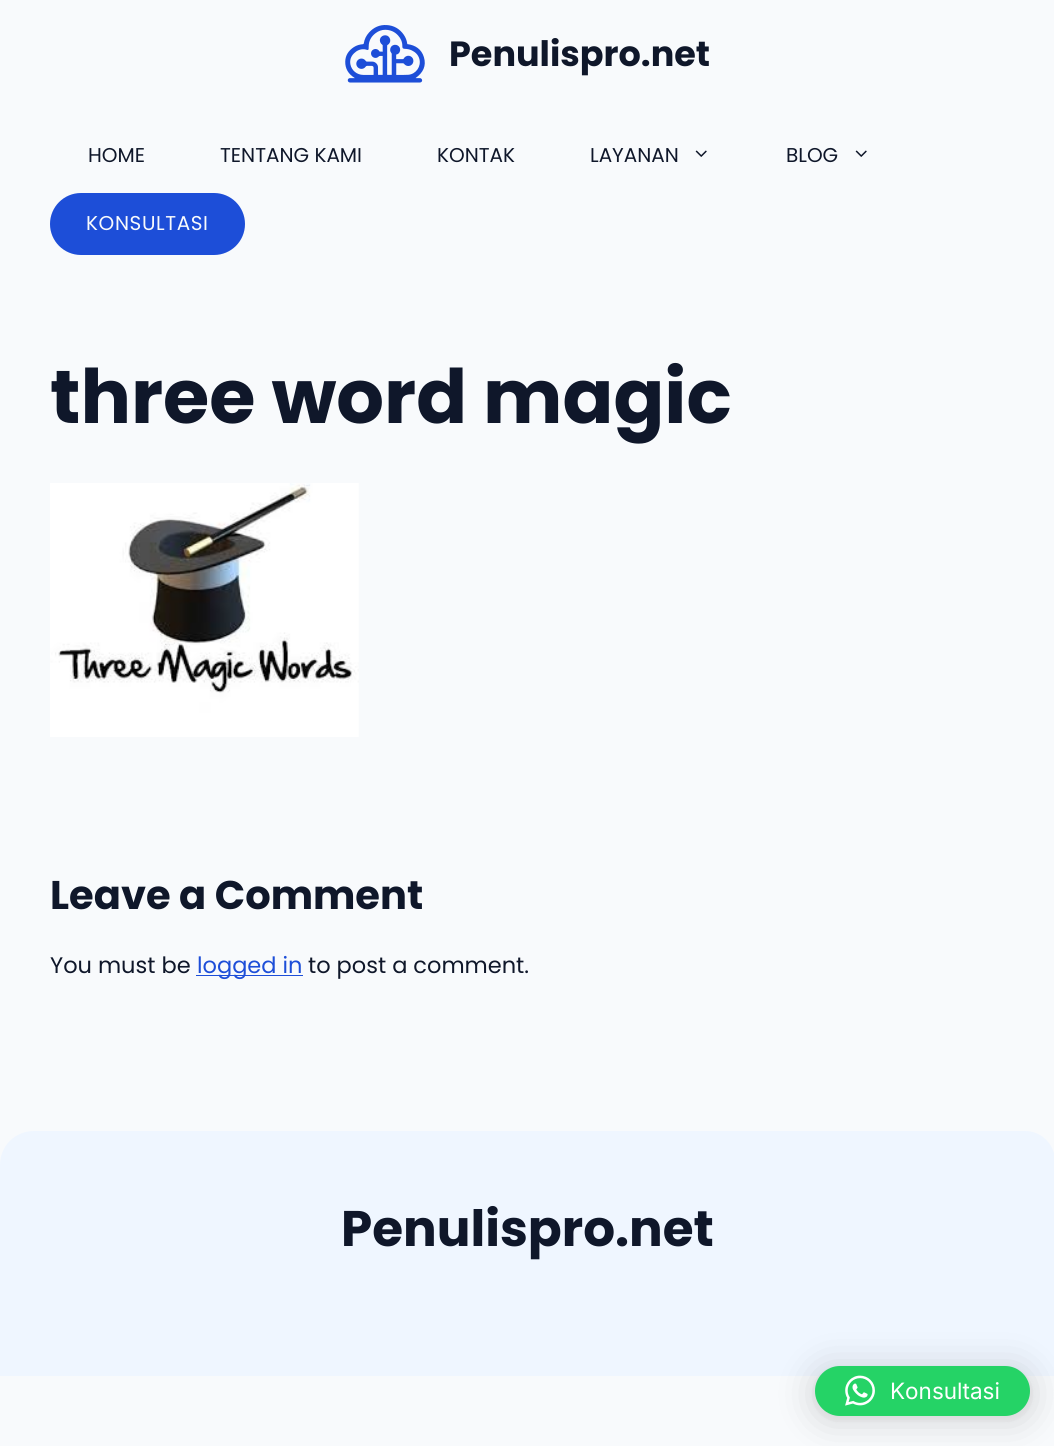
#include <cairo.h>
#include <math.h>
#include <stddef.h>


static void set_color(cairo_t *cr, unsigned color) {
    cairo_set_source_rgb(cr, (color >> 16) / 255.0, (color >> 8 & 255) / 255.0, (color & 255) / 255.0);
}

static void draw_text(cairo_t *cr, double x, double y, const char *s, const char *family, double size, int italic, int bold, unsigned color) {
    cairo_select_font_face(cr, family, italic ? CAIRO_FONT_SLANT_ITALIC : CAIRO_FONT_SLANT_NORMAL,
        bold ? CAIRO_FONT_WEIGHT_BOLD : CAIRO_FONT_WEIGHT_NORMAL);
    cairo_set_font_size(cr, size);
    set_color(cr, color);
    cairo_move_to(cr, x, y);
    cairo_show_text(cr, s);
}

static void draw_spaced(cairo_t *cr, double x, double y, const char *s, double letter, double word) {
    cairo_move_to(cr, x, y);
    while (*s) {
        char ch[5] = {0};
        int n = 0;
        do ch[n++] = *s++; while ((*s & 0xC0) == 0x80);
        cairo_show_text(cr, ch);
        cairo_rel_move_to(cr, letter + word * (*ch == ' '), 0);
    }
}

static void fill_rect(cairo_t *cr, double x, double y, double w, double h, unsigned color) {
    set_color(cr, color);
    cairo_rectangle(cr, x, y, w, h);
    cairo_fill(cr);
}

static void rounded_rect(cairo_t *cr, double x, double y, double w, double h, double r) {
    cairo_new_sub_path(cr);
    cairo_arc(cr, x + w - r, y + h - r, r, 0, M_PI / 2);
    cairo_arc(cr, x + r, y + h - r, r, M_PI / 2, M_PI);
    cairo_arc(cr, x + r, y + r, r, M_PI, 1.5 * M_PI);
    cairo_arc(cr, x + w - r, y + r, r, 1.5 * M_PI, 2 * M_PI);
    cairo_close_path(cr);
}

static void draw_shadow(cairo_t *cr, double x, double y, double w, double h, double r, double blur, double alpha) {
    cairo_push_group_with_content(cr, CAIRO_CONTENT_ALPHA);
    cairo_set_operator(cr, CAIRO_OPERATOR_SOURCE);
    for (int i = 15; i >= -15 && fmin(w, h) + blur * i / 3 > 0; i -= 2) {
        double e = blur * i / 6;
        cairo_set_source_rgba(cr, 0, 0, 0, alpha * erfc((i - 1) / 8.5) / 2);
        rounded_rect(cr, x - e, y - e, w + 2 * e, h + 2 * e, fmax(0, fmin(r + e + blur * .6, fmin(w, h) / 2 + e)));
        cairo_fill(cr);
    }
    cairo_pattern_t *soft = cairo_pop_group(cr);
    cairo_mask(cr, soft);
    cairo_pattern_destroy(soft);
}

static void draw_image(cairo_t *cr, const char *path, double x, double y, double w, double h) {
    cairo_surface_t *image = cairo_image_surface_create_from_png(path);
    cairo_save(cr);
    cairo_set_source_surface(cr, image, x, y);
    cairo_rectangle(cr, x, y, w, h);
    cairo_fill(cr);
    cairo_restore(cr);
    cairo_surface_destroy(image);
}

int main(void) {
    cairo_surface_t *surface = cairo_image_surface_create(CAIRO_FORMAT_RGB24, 1054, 1446);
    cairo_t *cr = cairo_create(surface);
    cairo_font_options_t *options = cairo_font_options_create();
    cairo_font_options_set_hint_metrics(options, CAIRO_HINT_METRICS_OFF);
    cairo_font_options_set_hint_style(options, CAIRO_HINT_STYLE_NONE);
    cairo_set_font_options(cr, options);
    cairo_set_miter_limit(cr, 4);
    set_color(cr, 0xF8FAFC);
    cairo_paint(cr);
    draw_image(cr, "assets/img1.png", 345, 25, 80, 58);
    draw_text(cr, 449, 66, "Penulispro.net", "Poppins", 35, 0, 1, 0x0F172A);
    draw_text(cr, 88, 162, "HOME", "Poppins", 20, 0, 0, 0x0F172A);
    draw_text(cr, 220, 162, "TENTANG KAMI", "Poppins", 20, 0, 0, 0x0F172A);
    draw_text(cr, 437, 162, "KONTAK", "Poppins", 20, 0, 0, 0x0F172A);
    draw_text(cr, 590, 162, "LAYANAN", "Poppins", 20, 0, 0, 0x0F172A);
    draw_image(cr, "assets/img2.png", 695, 150, 12, 7);
    draw_text(cr, 786, 162, "BLOG", "Poppins", 20, 0, 0, 0x0F172A);
    draw_image(cr, "assets/img2.png", 855, 150, 12, 7);
    set_color(cr, 0x1D4ED8);
    rounded_rect(cr, 50, 193, 195, 62, 31);
    cairo_fill(cr);
    set_color(cr, 0xF8FAFC);
    draw_spaced(cr, 86, 230, "KONSULTASI", 0.6, 0);
    draw_text(cr, 50, 423, "three word magic", "Poppins", 75, 0, 1, 0x0F172A);
    draw_image(cr, "assets/img3.png", 50, 483, 309, 254);
    draw_text(cr, 50, 909, "Leave a Comment", "Poppins", 40, 0, 1, 0x0F172A);
    draw_text(cr, 50, 973, "You must be", "Poppins", 22.5, 0, 0, 0x0F172A);
    fill_rect(cr, 196, 975, 107, 1, 0x1D4ED8);
    draw_text(cr, 197, 973, "logged in", "Poppins", 22.5, 0, 0, 0x1D4ED8);
    draw_text(cr, 308, 973, "to post a comment.", "Poppins", 22.5, 0, 0, 0x0F172A);
    set_color(cr, 0xEFF6FF);
    cairo_new_path(cr);
    cairo_move_to(cr, 34, 1131);
    cairo_line_to(cr, 1025, 1131);
    cairo_curve_to(cr, 1041.5, 1131, 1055, 1144.5, 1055, 1161);
    cairo_line_to(cr, 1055, 1376);
    cairo_line_to(cr, 0, 1376);
    cairo_line_to(cr, 0, 1165);
    cairo_curve_to(cr, 0, 1146, 15, 1131, 34, 1131);
    cairo_close_path(cr);
    cairo_fill(cr);
    draw_text(cr, 341, 1246, "Penulispro.net", "Poppins", 50, 0, 1, 0x0F172A);
    set_color(cr, 0x000000);
    draw_shadow(cr, 815, 1369, 215, 50, 25, 20, 0.16);
    draw_shadow(cr, 815, 1368, 215, 50, 25, 4, 0.06);
    set_color(cr, 0x25D366);
    rounded_rect(cr, 815, 1366, 215, 50, 25);
    cairo_fill(cr);
    draw_image(cr, "assets/img4.png", 845, 1375, 30, 31);
    draw_text(cr, 890, 1399, "Konsultasi", "Inter", 22.5, 0, 0, 0xFFFFFF);
    cairo_surface_write_to_png(surface, "output.png");
    cairo_font_options_destroy(options);
    cairo_destroy(cr);
    cairo_surface_destroy(surface);
    return 0;
}
